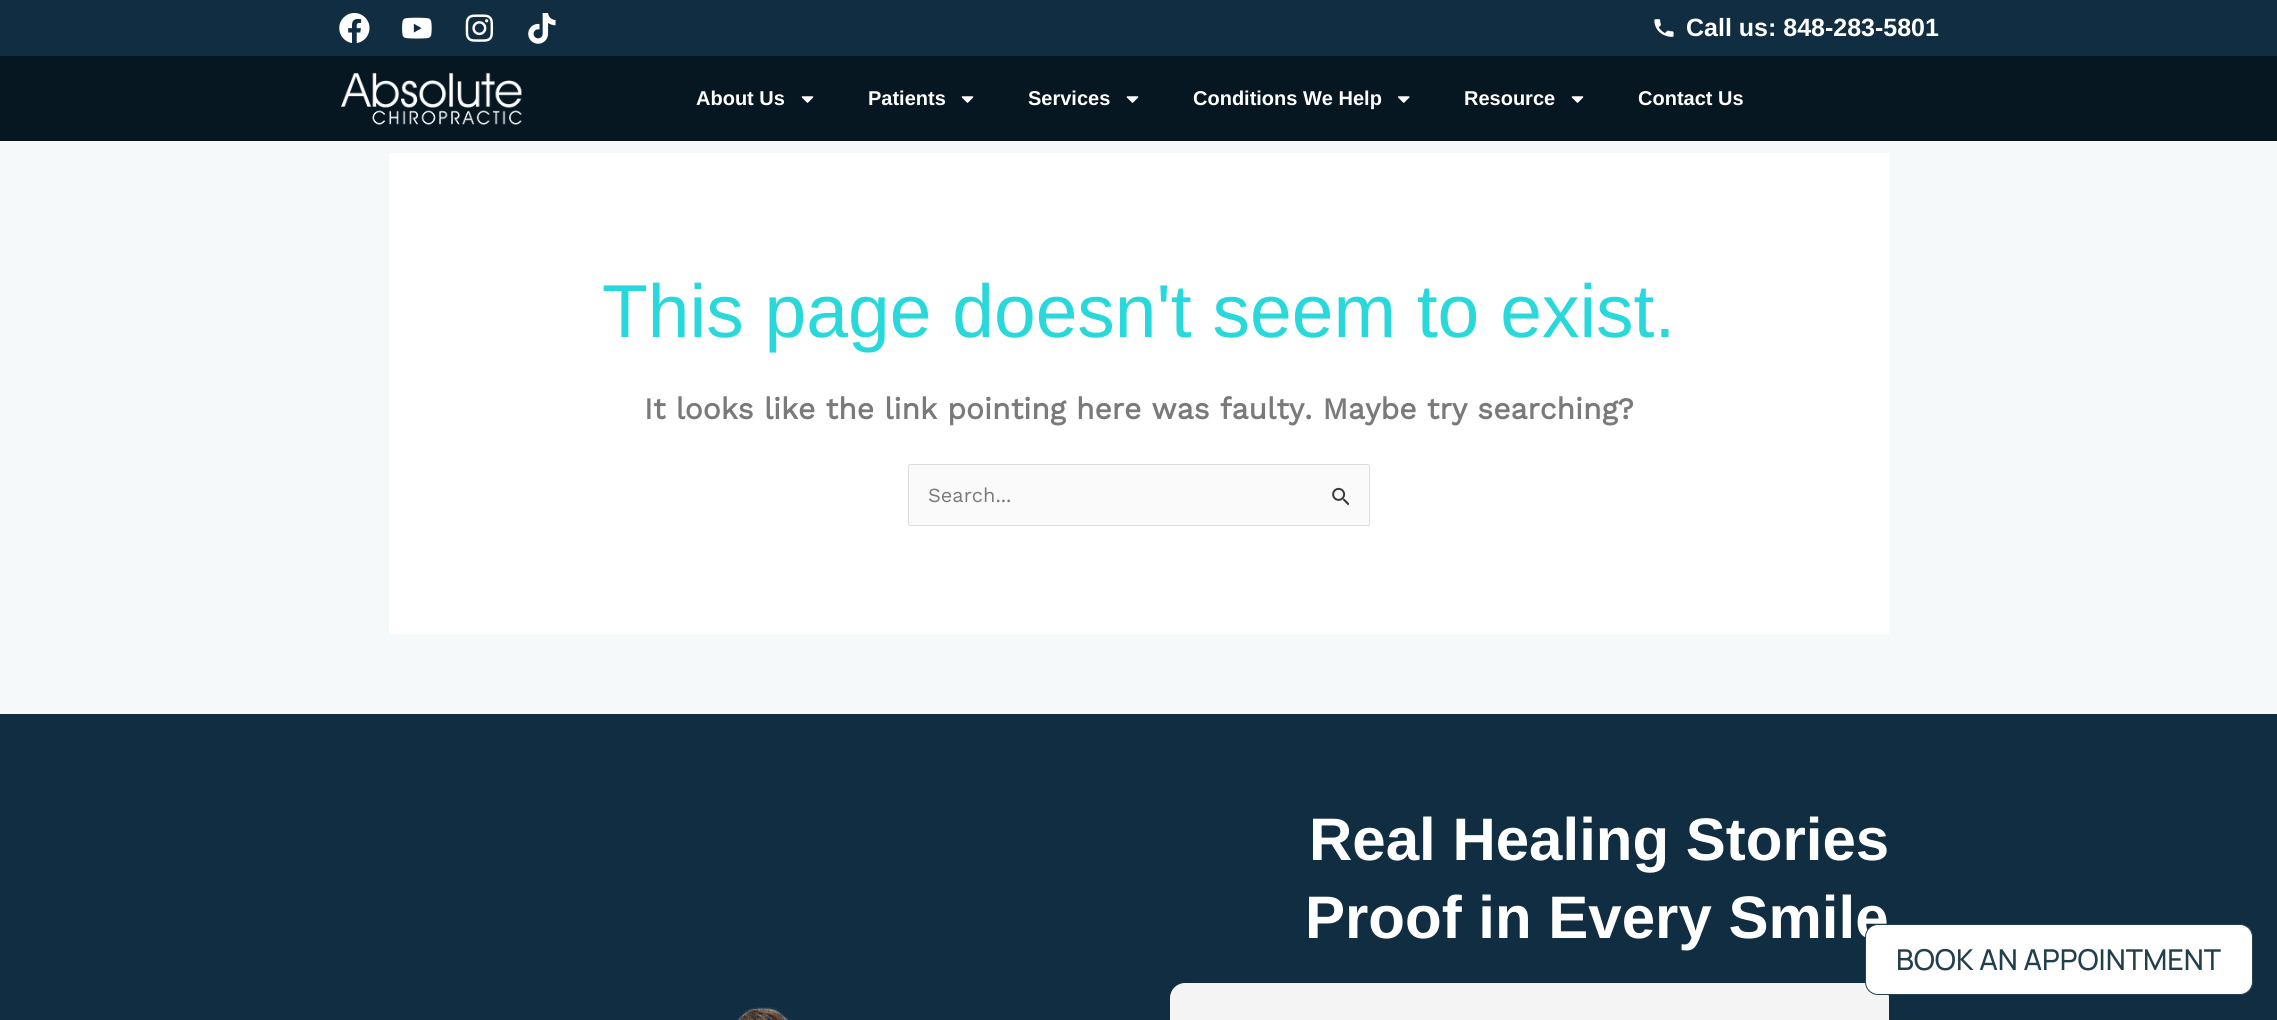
#include <cairo.h>
#include <math.h>
#include <stddef.h>


static void set_color(cairo_t *cr, unsigned color) {
    cairo_set_source_rgb(cr, (color >> 16) / 255.0, (color >> 8 & 255) / 255.0, (color & 255) / 255.0);
}

static void draw_text(cairo_t *cr, double x, double y, const char *s, const char *family, double size, int italic, int bold, unsigned color) {
    cairo_select_font_face(cr, family, italic ? CAIRO_FONT_SLANT_ITALIC : CAIRO_FONT_SLANT_NORMAL,
        bold ? CAIRO_FONT_WEIGHT_BOLD : CAIRO_FONT_WEIGHT_NORMAL);
    cairo_set_font_size(cr, size);
    set_color(cr, color);
    cairo_move_to(cr, x, y);
    cairo_show_text(cr, s);
}

static void fill_rect(cairo_t *cr, double x, double y, double w, double h, unsigned color) {
    set_color(cr, color);
    cairo_rectangle(cr, x, y, w, h);
    cairo_fill(cr);
}

static void rounded_rect(cairo_t *cr, double x, double y, double w, double h, double r) {
    cairo_new_sub_path(cr);
    cairo_arc(cr, x + w - r, y + h - r, r, 0, M_PI / 2);
    cairo_arc(cr, x + r, y + h - r, r, M_PI / 2, M_PI);
    cairo_arc(cr, x + r, y + r, r, M_PI, 1.5 * M_PI);
    cairo_arc(cr, x + w - r, y + r, r, 1.5 * M_PI, 2 * M_PI);
    cairo_close_path(cr);
}

static void draw_image(cairo_t *cr, const char *path, double x, double y, double w, double h) {
    cairo_surface_t *image = cairo_image_surface_create_from_png(path);
    cairo_save(cr);
    cairo_set_source_surface(cr, image, x, y);
    cairo_rectangle(cr, x, y, w, h);
    cairo_fill(cr);
    cairo_restore(cr);
    cairo_surface_destroy(image);
}

int main(void) {
    cairo_surface_t *surface = cairo_image_surface_create(CAIRO_FORMAT_RGB24, 2277, 1020);
    cairo_t *cr = cairo_create(surface);
    cairo_font_options_t *options = cairo_font_options_create();
    cairo_font_options_set_hint_metrics(options, CAIRO_HINT_METRICS_OFF);
    cairo_font_options_set_hint_style(options, CAIRO_HINT_STYLE_NONE);
    cairo_set_font_options(cr, options);
    cairo_set_miter_limit(cr, 4);
    set_color(cr, 0xF6F9F9);
    cairo_paint(cr);
    fill_rect(cr, 0, 0, 2277, 56, 0x112D41);
    draw_image(cr, "assets/img1.png", 339, 13, 31, 30);
    draw_image(cr, "assets/img2.png", 402, 17, 30, 22);
    draw_image(cr, "assets/img3.png", 465, 14, 29, 28);
    draw_image(cr, "assets/img4.png", 528, 13, 28, 31);
    draw_image(cr, "assets/img5.png", 1654, 19, 20, 18);
    draw_text(cr, 1686, 36, "Call us: 848-283-5801", "Liberation Sans", 25, 0, 1, 0xFFFFFF);
    fill_rect(cr, 0, 56, 2277, 85, 0x071722);
    draw_image(cr, "assets/img6.png", 341, 72, 181, 53);
    draw_text(cr, 696, 105, "About Us", "Liberation Sans", 20, 0, 1, 0xFFFFFF);
    draw_image(cr, "assets/img7.png", 801, 96, 13, 7);
    draw_text(cr, 868, 105, "Patients", "Liberation Sans", 20, 0, 1, 0xFFFFFF);
    draw_image(cr, "assets/img7.png", 961, 96, 13, 7);
    draw_text(cr, 1028, 105, "Services", "Liberation Sans", 20, 0, 1, 0xFFFFFF);
    draw_image(cr, "assets/img7.png", 1126, 96, 13, 7);
    draw_text(cr, 1193, 105, "Conditions We Help", "Liberation Sans", 20, 0, 1, 0xFFFFFF);
    draw_image(cr, "assets/img8.png", 1398, 96, 12, 7);
    draw_text(cr, 1464, 105, "Resource", "Liberation Sans", 20, 0, 1, 0xFFFFFF);
    draw_image(cr, "assets/img7.png", 1571, 96, 13, 7);
    draw_text(cr, 1638, 105, "Contact Us", "Liberation Sans", 20, 0, 1, 0xFFFFFF);
    fill_rect(cr, 389, 153, 1500, 481, 0xFFFFFF);
    draw_text(cr, 602, 337, "This page doesn't seem to exist.", "Liberation Sans", 75, 0, 0, 0x29D8DB);
    draw_text(cr, 644, 419, "It looks like the link pointing here was faulty. Maybe try searching?", "Work Sans", 30, 0, 1, 0x7A7A7A);
    set_color(cr, 0xFAFAFA);
    rounded_rect(cr, 908.5, 464.5, 461, 61, 2);
    cairo_fill_preserve(cr);
    set_color(cr, 0xDDDDDD);
    cairo_set_line_width(cr, 1);
    cairo_stroke(cr);
    draw_text(cr, 928, 502, "Search...", "Work Sans", 20, 0, 0, 0x7A7A7A);
    draw_image(cr, "assets/img9.png", 1332, 487, 17, 19);
    fill_rect(cr, 0, 714, 2277, 306, 0x112D41);
    draw_text(cr, 1309, 860, "Real Healing Stories", "Liberation Sans", 60, 0, 1, 0xFFFFFF);
    draw_text(cr, 1305, 938, "Proof in Every Smile", "Liberation Sans", 60, 0, 1, 0xFFFFFF);
    set_color(cr, 0xF4F4F4);
    rounded_rect(cr, 1170, 983, 719, 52, 15);
    cairo_fill(cr);
    draw_image(cr, "assets/img10.png", 736, 1007, 55, 13);
    set_color(cr, 0xFFFFFF);
    rounded_rect(cr, 1865.5, 924.5, 387, 70, 12.5);
    cairo_fill_preserve(cr);
    set_color(cr, 0x223F4D);
    cairo_stroke(cr);
    draw_text(cr, 1896, 970, "BOOK AN APPOINTMENT", "Manrope Medium", 28.75, 0, 0, 0x223F4D);
    cairo_surface_write_to_png(surface, "output.png");
    cairo_font_options_destroy(options);
    cairo_destroy(cr);
    cairo_surface_destroy(surface);
    return 0;
}
